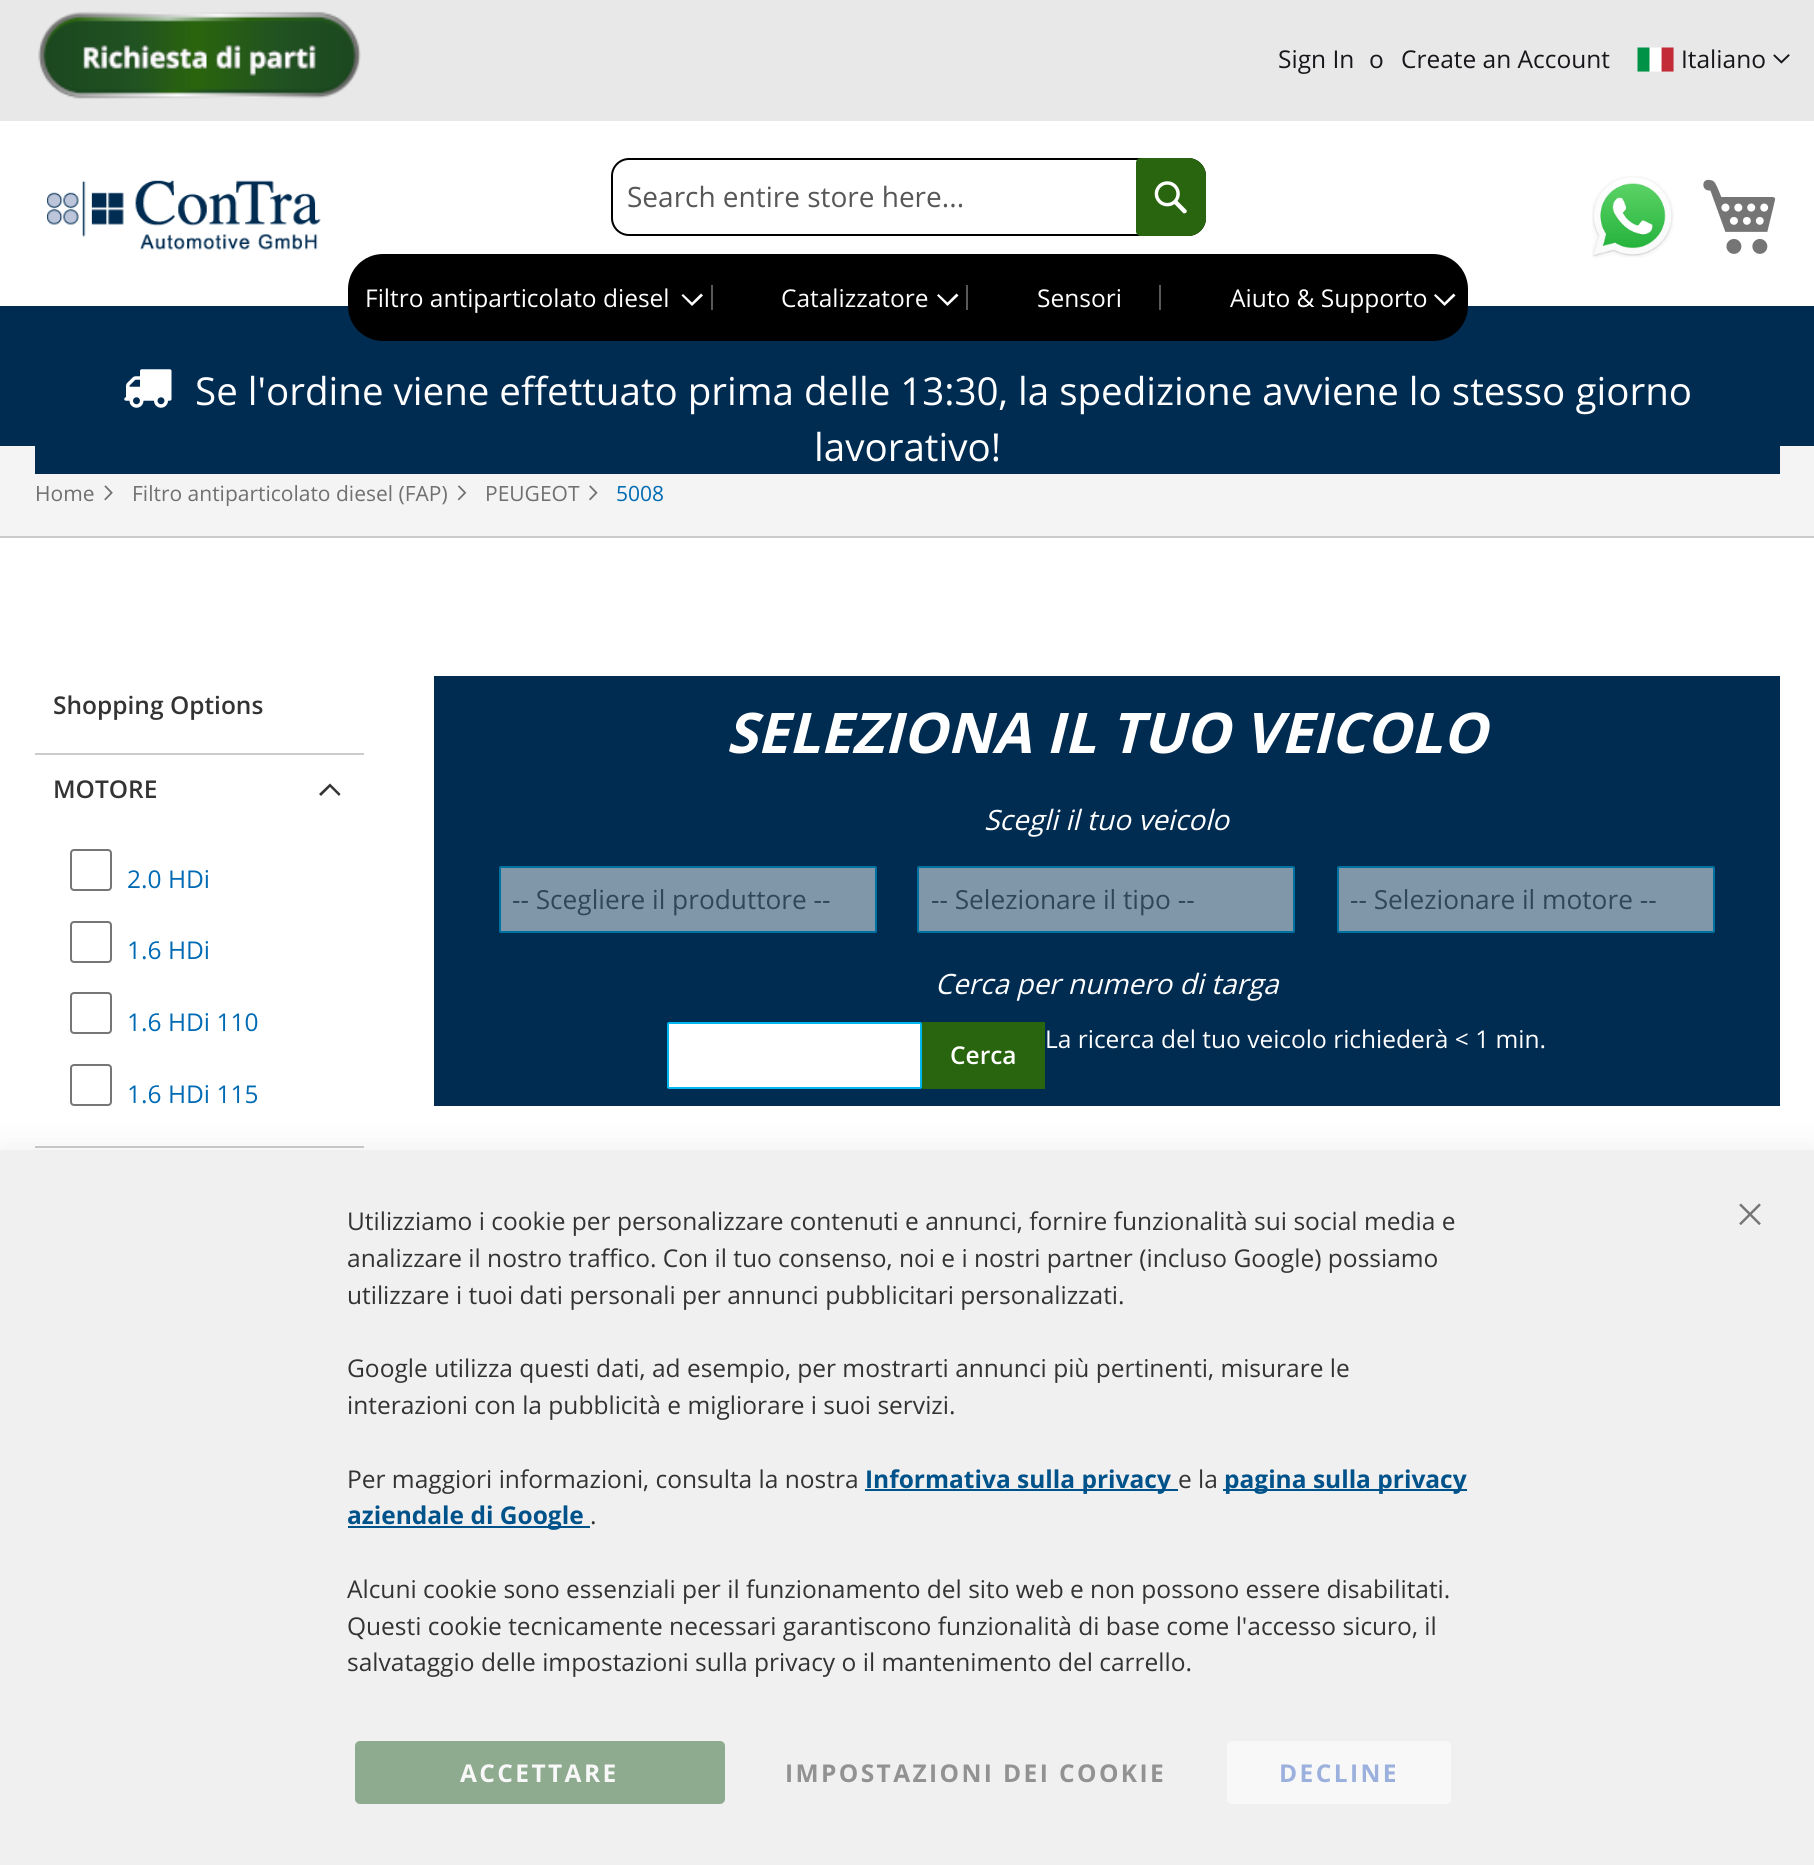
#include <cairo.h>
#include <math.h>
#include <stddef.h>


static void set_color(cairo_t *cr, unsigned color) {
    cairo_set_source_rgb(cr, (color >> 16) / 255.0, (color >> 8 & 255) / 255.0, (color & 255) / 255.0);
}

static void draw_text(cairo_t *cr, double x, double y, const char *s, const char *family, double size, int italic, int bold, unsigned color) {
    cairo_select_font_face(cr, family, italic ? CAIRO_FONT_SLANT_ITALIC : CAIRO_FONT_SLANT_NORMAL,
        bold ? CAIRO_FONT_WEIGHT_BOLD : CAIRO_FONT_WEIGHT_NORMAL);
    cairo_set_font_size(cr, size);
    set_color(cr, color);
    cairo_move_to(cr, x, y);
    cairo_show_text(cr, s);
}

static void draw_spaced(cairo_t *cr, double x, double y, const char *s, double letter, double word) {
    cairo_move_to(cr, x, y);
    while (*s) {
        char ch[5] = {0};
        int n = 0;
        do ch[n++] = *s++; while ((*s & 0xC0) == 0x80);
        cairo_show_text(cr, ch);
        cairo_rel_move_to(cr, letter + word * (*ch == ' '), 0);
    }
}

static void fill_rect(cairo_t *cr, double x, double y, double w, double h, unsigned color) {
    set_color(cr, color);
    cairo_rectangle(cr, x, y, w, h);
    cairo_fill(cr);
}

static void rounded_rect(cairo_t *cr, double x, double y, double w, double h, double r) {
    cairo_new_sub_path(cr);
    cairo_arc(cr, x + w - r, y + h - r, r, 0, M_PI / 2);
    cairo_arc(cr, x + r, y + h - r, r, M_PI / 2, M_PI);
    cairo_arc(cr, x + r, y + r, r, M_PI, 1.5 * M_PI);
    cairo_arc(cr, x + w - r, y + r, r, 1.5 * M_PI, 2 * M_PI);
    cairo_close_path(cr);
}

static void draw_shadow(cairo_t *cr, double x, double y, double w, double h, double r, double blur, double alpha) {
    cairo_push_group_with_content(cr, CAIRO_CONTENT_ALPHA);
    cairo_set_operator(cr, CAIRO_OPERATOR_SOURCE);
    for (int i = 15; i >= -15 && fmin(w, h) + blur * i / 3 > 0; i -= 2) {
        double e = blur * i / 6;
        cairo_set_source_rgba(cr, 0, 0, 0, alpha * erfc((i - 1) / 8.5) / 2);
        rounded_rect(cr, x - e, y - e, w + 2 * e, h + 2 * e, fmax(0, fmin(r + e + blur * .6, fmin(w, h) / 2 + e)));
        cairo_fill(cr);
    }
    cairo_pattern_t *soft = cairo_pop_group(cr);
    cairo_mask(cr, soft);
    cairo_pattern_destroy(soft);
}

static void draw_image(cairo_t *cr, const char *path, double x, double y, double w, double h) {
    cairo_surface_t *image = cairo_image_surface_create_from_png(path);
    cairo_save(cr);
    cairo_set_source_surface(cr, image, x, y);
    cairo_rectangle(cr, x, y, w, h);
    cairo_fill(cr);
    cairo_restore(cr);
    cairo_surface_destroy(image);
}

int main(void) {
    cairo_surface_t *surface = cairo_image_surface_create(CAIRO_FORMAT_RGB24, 1814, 1865);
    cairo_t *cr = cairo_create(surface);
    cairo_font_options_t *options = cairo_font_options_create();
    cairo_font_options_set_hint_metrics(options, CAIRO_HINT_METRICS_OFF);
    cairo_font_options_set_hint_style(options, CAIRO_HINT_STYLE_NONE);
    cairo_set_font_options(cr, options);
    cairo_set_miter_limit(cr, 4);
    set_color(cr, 0xFFFFFF);
    cairo_paint(cr);
    fill_rect(cr, 0, 0, 1814, 121, 0xE8E8E8);
    draw_image(cr, "assets/img1.png", 38, 11, 323, 88);
    draw_text(cr, 1278, 68, "Sign In", "Open Sans", 24.5, 0, 0, 0x19161B);
    draw_text(cr, 1369, 68, "o", "Open Sans", 24.5, 0, 0, 0x19161B);
    draw_text(cr, 1401, 68, "Create an Account", "Open Sans", 24.5, 0, 0, 0x19161B);
    draw_image(cr, "assets/img2.png", 1637, 47, 37, 25);
    draw_text(cr, 1681, 68, "Italiano", "Open Sans", 24.5, 0, 0, 0x19161B);
    draw_image(cr, "assets/img3.png", 1773, 54, 17, 10);
    draw_image(cr, "assets/img4.png", 47, 180, 274, 70);
    rounded_rect(cr, 612, 159, 593, 76, 17);
    set_color(cr, 0x000000);
    cairo_stroke(cr);
    draw_text(cr, 627, 207, "Search entire store here...", "Open Sans", 28, 0, 0, 0x575757);
    set_color(cr, 0x29650E);
    cairo_new_path(cr);
    cairo_move_to(cr, 1141, 158);
    cairo_line_to(cr, 1188, 158);
    cairo_curve_to(cr, 1198, 158, 1206, 166, 1206, 176);
    cairo_line_to(cr, 1206, 218);
    cairo_curve_to(cr, 1206, 228, 1198, 236, 1188, 236);
    cairo_line_to(cr, 1141, 236);
    cairo_curve_to(cr, 1138, 236, 1136, 234, 1136, 231);
    cairo_line_to(cr, 1136, 163);
    cairo_curve_to(cr, 1136, 160, 1138, 158, 1141, 158);
    cairo_close_path(cr);
    cairo_fill(cr);
    draw_image(cr, "assets/img5.png", 1154, 181, 33, 33);
    draw_image(cr, "assets/img6.png", 1592, 176, 82, 82);
    draw_image(cr, "assets/img7.png", 1703, 179, 73, 75);
    fill_rect(cr, 0, 306, 1814, 140, 0x002C52);
    set_color(cr, 0x000000);
    rounded_rect(cr, 348, 254, 1120, 87, 35);
    cairo_fill(cr);
    draw_text(cr, 365, 307, "Filtro antiparticolato diesel", "Open Sans", 24.5, 0, 0, 0xFFFFFF);
    cairo_new_path(cr);
    cairo_move_to(cr, 692, 302.5);
    cairo_line_to(cr, 683, 294);
    cairo_line_to(cr, 681.5, 295.5);
    cairo_line_to(cr, 692, 306);
    cairo_line_to(cr, 703, 295.5);
    cairo_line_to(cr, 701, 293.5);
    cairo_close_path(cr);
    cairo_fill(cr);
    fill_rect(cr, 711, 285, 2, 25, 0x595959);
    draw_text(cr, 781, 307, "Catalizzatore", "Open Sans", 24.5, 0, 0, 0xFFFFFF);
    cairo_new_path(cr);
    cairo_move_to(cr, 947.5, 302.5);
    cairo_line_to(cr, 938.5, 294);
    cairo_line_to(cr, 937, 295.5);
    cairo_line_to(cr, 947.5, 306);
    cairo_line_to(cr, 958.5, 295.5);
    cairo_line_to(cr, 956.5, 293.5);
    cairo_close_path(cr);
    cairo_fill(cr);
    fill_rect(cr, 966, 285, 2, 25, 0x595959);
    draw_text(cr, 1037, 307, "Sensori", "Open Sans", 24.5, 0, 0, 0xFFFFFF);
    fill_rect(cr, 1159, 285, 2, 25, 0x595959);
    draw_text(cr, 1230, 307, "Aiuto & Supporto", "Open Sans", 24.5, 0, 0, 0xFFFFFF);
    cairo_new_path(cr);
    cairo_move_to(cr, 1444.5, 302.5);
    cairo_line_to(cr, 1435.5, 294);
    cairo_line_to(cr, 1434, 295.5);
    cairo_line_to(cr, 1444.5, 306);
    cairo_line_to(cr, 1455.5, 295.5);
    cairo_line_to(cr, 1453.5, 293.5);
    cairo_close_path(cr);
    cairo_fill(cr);
    fill_rect(cr, 0, 446, 1814, 90, 0xF4F4F4);
    fill_rect(cr, 35, 446, 1745, 28, 0x002C52);
    draw_image(cr, "assets/img8.png", 124, 369, 48, 39);
    draw_text(cr, 195, 405, "Se l'ordine viene effettuato prima delle 13:30, la spedizione avviene lo stesso giorno", "Open Sans", 38.5, 0, 0, 0xFFFFFF);
    draw_text(cr, 814, 461, "lavorativo!", "Open Sans", 38.5, 0, 0, 0xFFFFFF);
    fill_rect(cr, 35, 753, 329, 2, 0xCCCCCC);
    draw_text(cr, 53, 714, "Shopping Options", "Open Sans SemiBold", 24.5, 0, 0, 0x333333);
    fill_rect(cr, 35, 1146, 329, 2, 0xCCCCCC);
    draw_text(cr, 53, 798, "MOTORE", "Open Sans SemiBold", 24.5, 0, 0, 0x333333);
    cairo_new_path(cr);
    cairo_move_to(cr, 330, 787);
    cairo_line_to(cr, 339, 796);
    cairo_line_to(cr, 340.5, 794);
    cairo_line_to(cr, 330, 783.5);
    cairo_line_to(cr, 319, 794);
    cairo_line_to(cr, 321, 796);
    cairo_close_path(cr);
    cairo_fill(cr);
    rounded_rect(cr, 71, 850, 40, 40, 3);
    set_color(cr, 0x767676);
    cairo_stroke(cr);
    draw_text(cr, 127, 888, "2.0 HDi", "Open Sans", 24.5, 0, 0, 0x006BB4);
    rounded_rect(cr, 71, 922, 40, 40, 3);
    set_color(cr, 0x767676);
    cairo_stroke(cr);
    draw_text(cr, 127, 959, "1.6 HDi", "Open Sans", 24.5, 0, 0, 0x006BB4);
    rounded_rect(cr, 71, 993, 40, 40, 3);
    set_color(cr, 0x767676);
    cairo_stroke(cr);
    draw_text(cr, 127, 1031, "1.6 HDi 110", "Open Sans", 24.5, 0, 0, 0x006BB4);
    rounded_rect(cr, 71, 1065, 40, 40, 3);
    set_color(cr, 0x767676);
    cairo_stroke(cr);
    draw_text(cr, 127, 1103, "1.6 HDi 115", "Open Sans", 24.5, 0, 0, 0x006BB4);
    fill_rect(cr, 434, 676, 1346, 430, 0x002C52);
    draw_text(cr, 726, 753, "SELEZIONA IL TUO VEICOLO", "Open Sans", 56, 1, 1, 0xFFFFFF);
    draw_text(cr, 984, 830, "Scegli il tuo veicolo", "Open Sans", 28, 1, 0, 0xFFFFFF);
    set_color(cr, 0x8096A9);
    rounded_rect(cr, 500, 867, 376, 65, 1);
    cairo_fill_preserve(cr);
    set_color(cr, 0x0072A2);
    cairo_stroke(cr);
    draw_text(cr, 512, 909, "-- Scegliere il produttore --", "Open Sans", 26.25, 0, 0, 0x304659);
    set_color(cr, 0x8096A9);
    rounded_rect(cr, 918, 867, 376, 65, 1);
    cairo_fill_preserve(cr);
    set_color(cr, 0x0072A2);
    cairo_stroke(cr);
    draw_text(cr, 931, 909, "-- Selezionare il tipo --", "Open Sans", 26.25, 0, 0, 0x304659);
    set_color(cr, 0x8096A9);
    rounded_rect(cr, 1338, 867, 376, 65, 1);
    cairo_fill_preserve(cr);
    set_color(cr, 0x0072A2);
    cairo_stroke(cr);
    draw_text(cr, 1350, 909, "-- Selezionare il motore --", "Open Sans", 26.25, 0, 0, 0x304659);
    draw_text(cr, 935, 994, "Cerca per numero di targa", "Open Sans", 28, 1, 0, 0xFFFFFF);
    rounded_rect(cr, 668, 1023, 253, 65, 1);
    cairo_fill_preserve(cr);
    set_color(cr, 0x00B7F1);
    cairo_stroke(cr);
    draw_text(cr, 1045, 1048, "La ricerca del tuo veicolo richiederà < 1 min.", "Open Sans", 24.5, 0, 0, 0xFFFFFF);
    fill_rect(cr, 922, 1022, 123, 67, 0x29650E);
    draw_text(cr, 950, 1064, "Cerca", "Open Sans SemiBold", 24.5, 0, 0, 0xFFFFFF);
    fill_rect(cr, 0, 536, 1814, 2, 0xCCCCCC);
    draw_text(cr, 35, 501, "Home", "Open Sans", 21, 0, 0, 0x707070);
    draw_image(cr, "assets/img9.png", 104, 485, 9, 16);
    draw_text(cr, 132, 501, "Filtro antiparticolato diesel (FAP)", "Open Sans", 21, 0, 0, 0x707070);
    draw_image(cr, "assets/img10.png", 457, 485, 10, 16);
    draw_text(cr, 485, 501, "PEUGEOT", "Open Sans", 21, 0, 0, 0x707070);
    draw_image(cr, "assets/img11.png", 589, 485, 9, 16);
    draw_text(cr, 616, 501, "5008", "Open Sans", 21, 0, 0, 0x006BB4);
    set_color(cr, 0x000000);
    draw_shadow(cr, 0, 1146, 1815, 716, 0, 16, 0.06);
    fill_rect(cr, 0, 1150, 1814, 715, 0xF0F0F0);
    draw_text(cr, 347, 1230, "Utilizziamo i cookie per personalizzare contenuti e annunci, fornire funzionalità sui social media e", "Open Sans", 24.5, 0, 0, 0x333333);
    draw_text(cr, 347, 1267, "analizzare il nostro traffico. Con il tuo consenso, noi e i nostri partner (incluso Google) possiamo", "Open Sans", 24.5, 0, 0, 0x333333);
    draw_text(cr, 347, 1304, "utilizzare i tuoi dati personali per annunci pubblicitari personalizzati.", "Open Sans", 24.5, 0, 0, 0x333333);
    draw_text(cr, 347, 1377, "Google utilizza questi dati, ad esempio, per mostrarti annunci più pertinenti, misurare le", "Open Sans", 24.5, 0, 0, 0x333333);
    draw_text(cr, 347, 1414, "interazioni con la pubblicità e migliorare i suoi servizi.", "Open Sans", 24.5, 0, 0, 0x333333);
    draw_text(cr, 347, 1488, "Per maggiori informazioni, consulta la nostra", "Open Sans", 24.5, 0, 0, 0x333333);
    fill_rect(cr, 865, 1489, 313, 2, 0x00528A);
    draw_text(cr, 865, 1488, "Informativa sulla privacy", "Open Sans", 24.5, 0, 1, 0x00528A);
    draw_text(cr, 1178, 1488, "e la", "Open Sans", 24.5, 0, 0, 0x333333);
    fill_rect(cr, 1223, 1489, 244, 2, 0x00528A);
    draw_text(cr, 1224, 1488, "pagina sulla privacy", "Open Sans", 24.5, 0, 1, 0x00528A);
    fill_rect(cr, 348, 1526, 242, 2, 0x00528A);
    draw_text(cr, 347, 1524, "aziendale di Google", "Open Sans", 24.5, 0, 1, 0x00528A);
    draw_text(cr, 590, 1524, ".", "Open Sans", 24.5, 0, 0, 0x333333);
    draw_text(cr, 347, 1598, "Alcuni cookie sono essenziali per il funzionamento del sito web e non possono essere disabilitati.", "Open Sans", 24.5, 0, 0, 0x333333);
    draw_text(cr, 347, 1635, "Questi cookie tecnicamente necessari garantiscono funzionalità di base come l'accesso sicuro, il", "Open Sans", 24.5, 0, 0, 0x333333);
    draw_text(cr, 347, 1671, "salvataggio delle impostazioni sulla privacy o il mantenimento del carrello.", "Open Sans", 24.5, 0, 0, 0x333333);
    set_color(cr, 0x8EAA8F);
    rounded_rect(cr, 355, 1741, 370, 63, 5);
    cairo_fill(cr);
    cairo_select_font_face(cr, "Open Sans", CAIRO_FONT_SLANT_NORMAL, CAIRO_FONT_WEIGHT_BOLD);
    set_color(cr, 0xF8F8F8);
    draw_spaced(cr, 460, 1782, "ACCETTARE", 2.4, 0);
    set_color(cr, 0x929292);
    draw_spaced(cr, 785, 1782, "IMPOSTAZIONI DEI COOKIE", 2.4, 0);
    set_color(cr, 0xF8F8F8);
    rounded_rect(cr, 1227, 1741, 224, 63, 5);
    cairo_fill(cr);
    set_color(cr, 0x9BB0DD);
    draw_spaced(cr, 1279, 1782, "DECLINE", 2.4, 0);
    draw_image(cr, "assets/img12.png", 1739, 1203, 22, 22);
    cairo_surface_write_to_png(surface, "output.png");
    cairo_font_options_destroy(options);
    cairo_destroy(cr);
    cairo_surface_destroy(surface);
    return 0;
}
